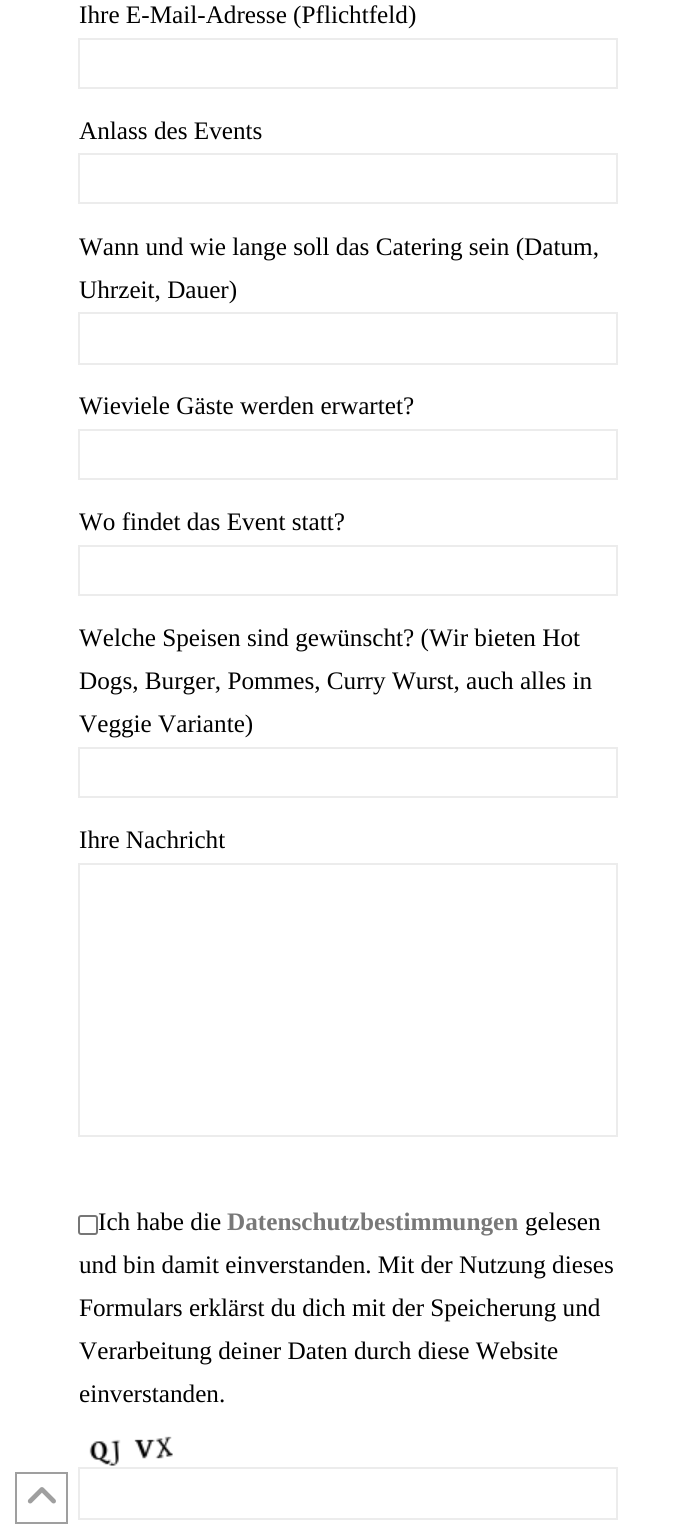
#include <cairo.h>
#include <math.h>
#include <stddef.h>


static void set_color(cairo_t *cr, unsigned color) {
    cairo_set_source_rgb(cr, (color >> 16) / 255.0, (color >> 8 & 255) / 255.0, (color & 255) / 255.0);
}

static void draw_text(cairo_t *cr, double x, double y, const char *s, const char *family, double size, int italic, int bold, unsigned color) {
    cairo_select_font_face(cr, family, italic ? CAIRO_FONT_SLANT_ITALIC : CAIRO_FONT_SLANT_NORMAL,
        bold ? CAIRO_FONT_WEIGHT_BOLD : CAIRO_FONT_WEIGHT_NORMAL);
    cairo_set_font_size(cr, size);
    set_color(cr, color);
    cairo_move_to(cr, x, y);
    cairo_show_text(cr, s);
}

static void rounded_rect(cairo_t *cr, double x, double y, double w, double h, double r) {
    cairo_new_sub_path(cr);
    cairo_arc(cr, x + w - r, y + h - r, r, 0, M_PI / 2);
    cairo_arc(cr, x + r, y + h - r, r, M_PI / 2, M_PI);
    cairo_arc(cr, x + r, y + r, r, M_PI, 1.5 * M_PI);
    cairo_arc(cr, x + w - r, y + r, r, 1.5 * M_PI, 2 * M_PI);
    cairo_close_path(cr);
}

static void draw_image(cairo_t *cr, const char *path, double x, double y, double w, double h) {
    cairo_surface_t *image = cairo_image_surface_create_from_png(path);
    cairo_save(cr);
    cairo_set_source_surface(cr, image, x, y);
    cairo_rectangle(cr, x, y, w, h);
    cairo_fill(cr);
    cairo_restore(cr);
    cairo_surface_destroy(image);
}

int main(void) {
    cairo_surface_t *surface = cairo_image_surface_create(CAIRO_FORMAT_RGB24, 696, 1538);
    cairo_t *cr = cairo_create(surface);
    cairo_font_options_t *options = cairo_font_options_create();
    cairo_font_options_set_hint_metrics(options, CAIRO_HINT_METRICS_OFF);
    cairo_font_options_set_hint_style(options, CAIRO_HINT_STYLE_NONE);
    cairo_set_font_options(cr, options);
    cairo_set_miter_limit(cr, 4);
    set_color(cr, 0xFFFFFF);
    cairo_paint(cr);
    draw_text(cr, 79, 23, "Ihre E-Mail-Adresse (Pflichtfeld)", "Liberation Serif", 25.2, 0, 0, 0x000000);
    cairo_rectangle(cr, 79, 39, 538, 49);
    set_color(cr, 0xECECEC);
    cairo_stroke(cr);
    draw_text(cr, 79, 139, "Anlass des Events", "Liberation Serif", 25.2, 0, 0, 0x000000);
    cairo_rectangle(cr, 79, 154, 538, 49);
    set_color(cr, 0xECECEC);
    cairo_stroke(cr);
    draw_text(cr, 79, 255, "Wann und wie lange soll das Catering sein (Datum,", "Liberation Serif", 25.2, 0, 0, 0x000000);
    draw_text(cr, 79, 298, "Uhrzeit, Dauer)", "Liberation Serif", 25.2, 0, 0, 0x000000);
    cairo_rectangle(cr, 79, 313, 538, 51);
    set_color(cr, 0xECECEC);
    cairo_stroke(cr);
    draw_text(cr, 79, 414, "Wieviele Gäste werden erwartet?", "Liberation Serif", 25.2, 0, 0, 0x000000);
    cairo_rectangle(cr, 79, 430, 538, 49);
    set_color(cr, 0xECECEC);
    cairo_stroke(cr);
    draw_text(cr, 79, 530, "Wo findet das Event statt?", "Liberation Serif", 25.2, 0, 0, 0x000000);
    cairo_rectangle(cr, 79, 546, 538, 49);
    set_color(cr, 0xECECEC);
    cairo_stroke(cr);
    draw_text(cr, 79, 646, "Welche Speisen sind gewünscht? (Wir bieten Hot", "Liberation Serif", 25.2, 0, 0, 0x000000);
    draw_text(cr, 79, 689, "Dogs, Burger, Pommes, Curry Wurst, auch alles in", "Liberation Serif", 25.2, 0, 0, 0x000000);
    draw_text(cr, 79, 732, "Veggie Variante)", "Liberation Serif", 25.2, 0, 0, 0x000000);
    cairo_rectangle(cr, 79, 748, 538, 49);
    set_color(cr, 0xECECEC);
    cairo_stroke(cr);
    draw_text(cr, 79, 848, "Ihre Nachricht", "Liberation Serif", 25.2, 0, 0, 0x000000);
    cairo_rectangle(cr, 79, 864, 538, 272);
    set_color(cr, 0xECECEC);
    cairo_stroke(cr);
    rounded_rect(cr, 79, 1216, 18, 18, 2);
    set_color(cr, 0x767676);
    cairo_stroke(cr);
    draw_text(cr, 98, 1230, "Ich habe die", "Liberation Serif", 25.2, 0, 0, 0x000000);
    draw_text(cr, 227, 1230, "Datenschutzbestimmungen", "Liberation Serif", 25.2, 0, 1, 0x787878);
    draw_text(cr, 525, 1230, "gelesen", "Liberation Serif", 25.2, 0, 0, 0x000000);
    draw_text(cr, 79, 1273, "und bin damit einverstanden. Mit der Nutzung dieses", "Liberation Serif", 25.2, 0, 0, 0x000000);
    draw_text(cr, 79, 1316, "Formulars erklärst du dich mit der Speicherung und", "Liberation Serif", 25.2, 0, 0, 0x000000);
    draw_text(cr, 79, 1359, "Verarbeitung deiner Daten durch diese Website", "Liberation Serif", 25.2, 0, 0, 0x000000);
    draw_text(cr, 79, 1402, "einverstanden.", "Liberation Serif", 25.2, 0, 0, 0x000000);
    draw_image(cr, "assets/img1.png", 89, 1436, 84, 30);
    cairo_rectangle(cr, 79, 1468, 538, 51);
    set_color(cr, 0xECECEC);
    cairo_stroke(cr);
    cairo_rectangle(cr, 16, 1473, 51, 50);
    set_color(cr, 0x9F9F9F);
    cairo_stroke(cr);
    draw_image(cr, "assets/img2.png", 27, 1487, 29, 17);
    cairo_surface_write_to_png(surface, "output.png");
    cairo_font_options_destroy(options);
    cairo_destroy(cr);
    cairo_surface_destroy(surface);
    return 0;
}
